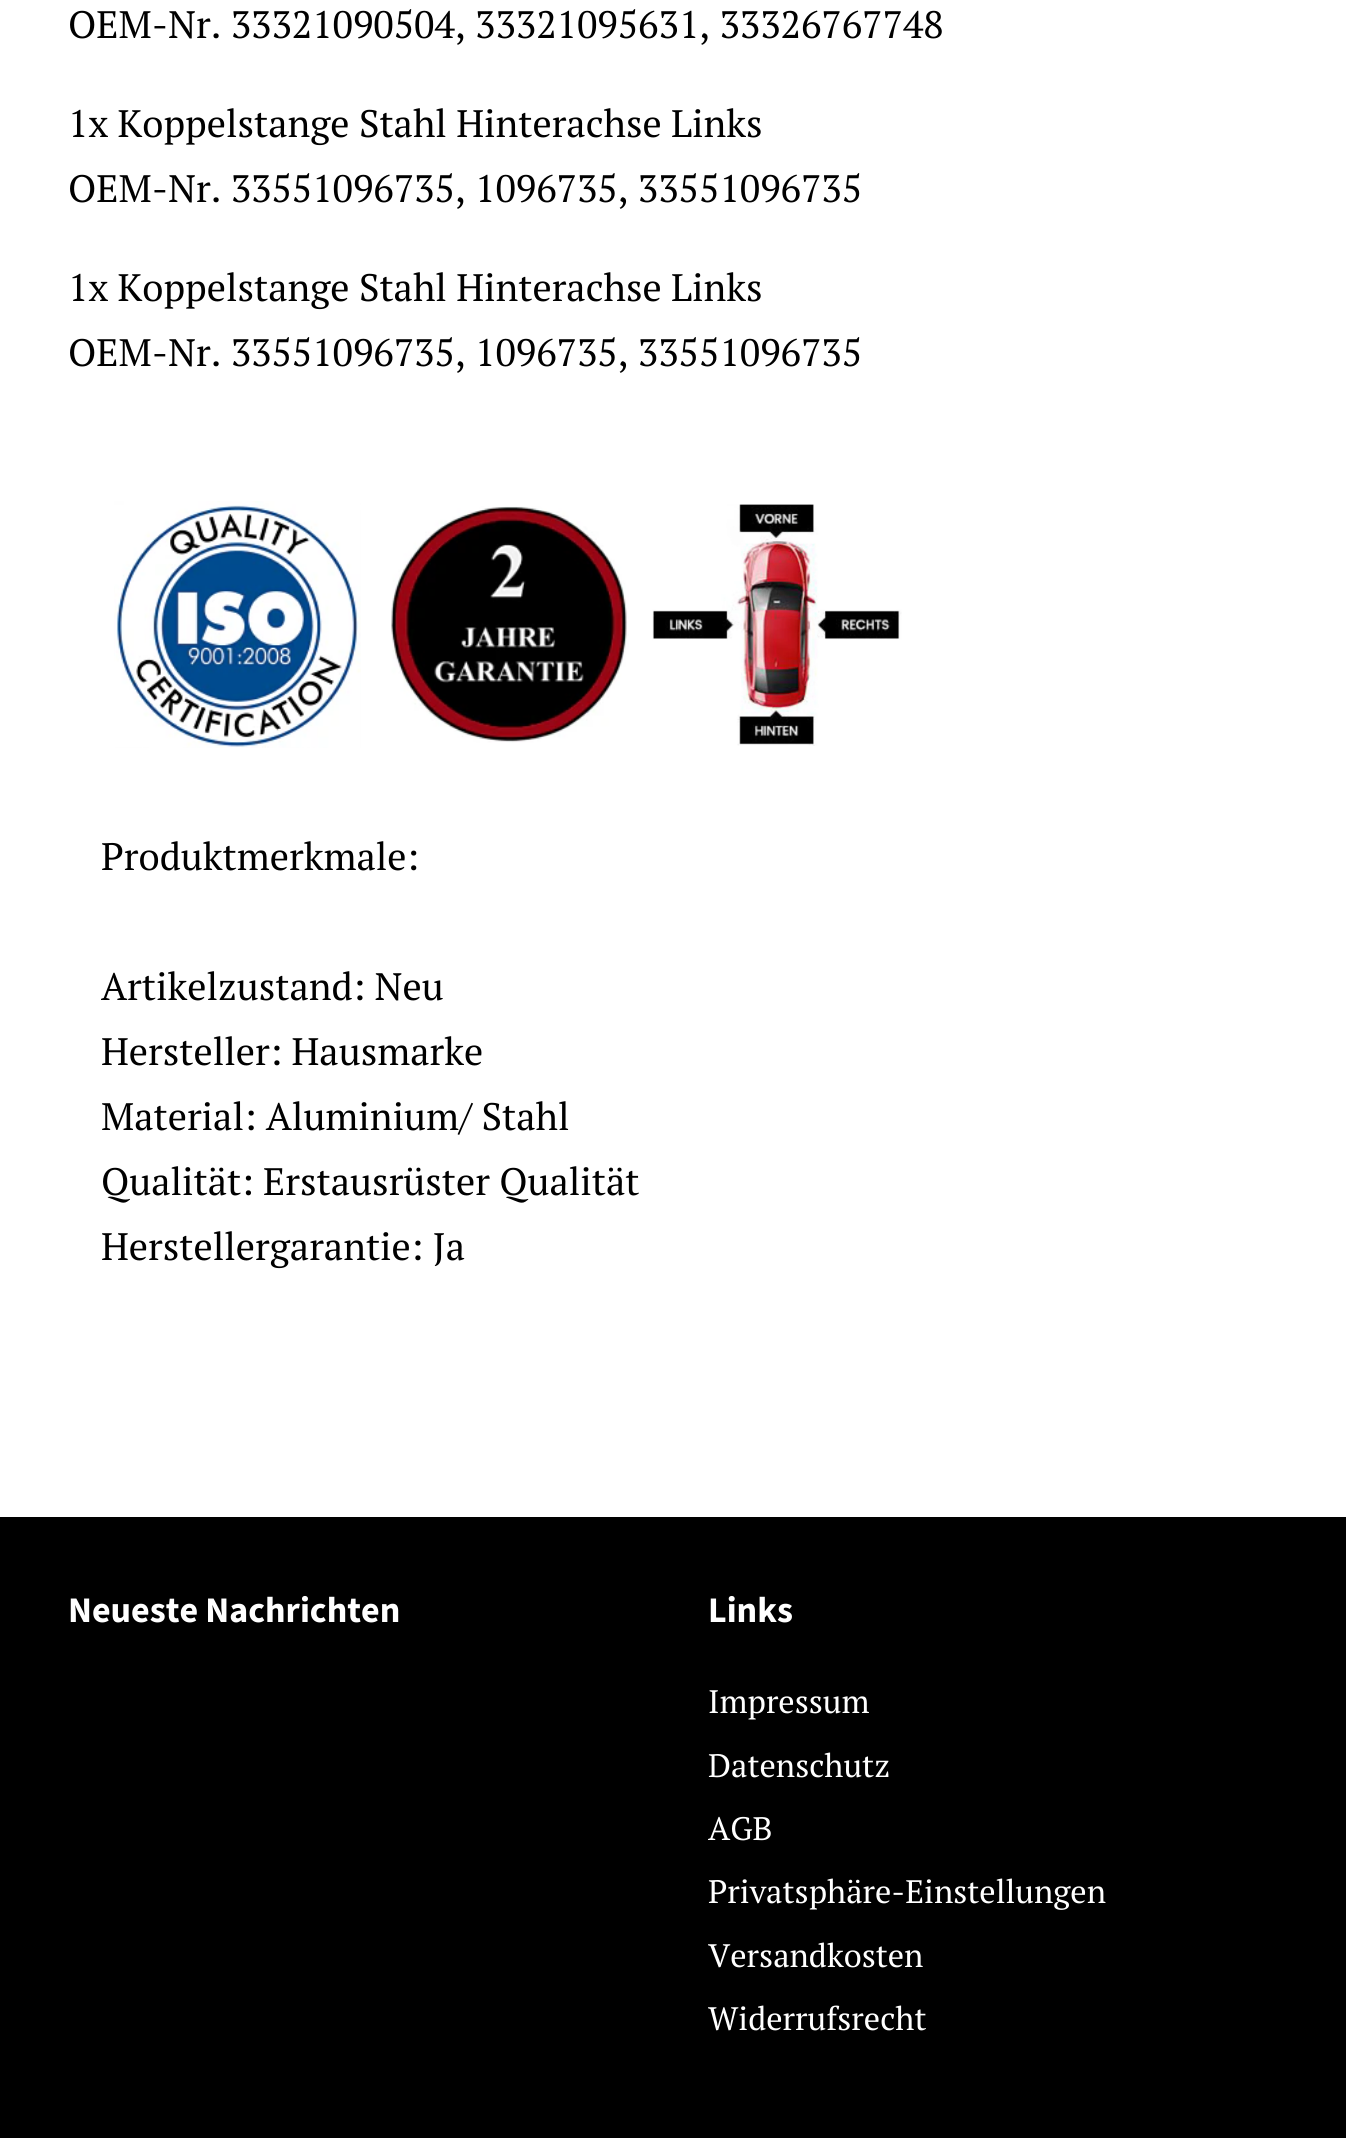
#include <cairo.h>
#include <math.h>
#include <stddef.h>


static void set_color(cairo_t *cr, unsigned color) {
    cairo_set_source_rgb(cr, (color >> 16) / 255.0, (color >> 8 & 255) / 255.0, (color & 255) / 255.0);
}

static void draw_text(cairo_t *cr, double x, double y, const char *s, const char *family, double size, int italic, int bold, unsigned color) {
    cairo_select_font_face(cr, family, italic ? CAIRO_FONT_SLANT_ITALIC : CAIRO_FONT_SLANT_NORMAL,
        bold ? CAIRO_FONT_WEIGHT_BOLD : CAIRO_FONT_WEIGHT_NORMAL);
    cairo_set_font_size(cr, size);
    set_color(cr, color);
    cairo_move_to(cr, x, y);
    cairo_show_text(cr, s);
}

static void fill_rect(cairo_t *cr, double x, double y, double w, double h, unsigned color) {
    set_color(cr, color);
    cairo_rectangle(cr, x, y, w, h);
    cairo_fill(cr);
}

static void draw_image(cairo_t *cr, const char *path, double x, double y, double w, double h) {
    cairo_surface_t *image = cairo_image_surface_create_from_png(path);
    cairo_save(cr);
    cairo_set_source_surface(cr, image, x, y);
    cairo_rectangle(cr, x, y, w, h);
    cairo_fill(cr);
    cairo_restore(cr);
    cairo_surface_destroy(image);
}

int main(void) {
    cairo_surface_t *surface = cairo_image_surface_create(CAIRO_FORMAT_RGB24, 1346, 2138);
    cairo_t *cr = cairo_create(surface);
    cairo_font_options_t *options = cairo_font_options_create();
    cairo_font_options_set_hint_metrics(options, CAIRO_HINT_METRICS_OFF);
    cairo_font_options_set_hint_style(options, CAIRO_HINT_STYLE_NONE);
    cairo_set_font_options(cr, options);
    cairo_set_miter_limit(cr, 4);
    set_color(cr, 0xFFFFFF);
    cairo_paint(cr);
    draw_text(cr, 68, 38, "OEM-Nr. 33321090504, 33321095631, 33326767748", "PT Serif", 38.25, 0, 0, 0x000000);
    draw_text(cr, 68, 137, "1x Koppelstange Stahl Hinterachse Links", "PT Serif", 38.25, 0, 0, 0x000000);
    draw_text(cr, 68, 202, "OEM-Nr. 33551096735, 1096735, 33551096735", "PT Serif", 38.25, 0, 0, 0x000000);
    draw_text(cr, 68, 301, "1x Koppelstange Stahl Hinterachse Links", "PT Serif", 38.25, 0, 0, 0x000000);
    draw_text(cr, 68, 366, "OEM-Nr. 33551096735, 1096735, 33551096735", "PT Serif", 38.25, 0, 0, 0x000000);
    draw_image(cr, "assets/img1.png", 114, 501, 247, 247);
    draw_image(cr, "assets/img2.png", 391, 506, 238, 237);
    draw_image(cr, "assets/img3.png", 652, 504, 250, 242);
    draw_text(cr, 101, 870, "Produktmerkmale:", "PT Serif", 38.25, 0, 0, 0x000000);
    draw_text(cr, 101, 1000, "Artikelzustand: Neu", "PT Serif", 38.25, 0, 0, 0x000000);
    draw_text(cr, 101, 1065, "Hersteller: Hausmarke", "PT Serif", 38.25, 0, 0, 0x000000);
    draw_text(cr, 101, 1130, "Material: Aluminium/ Stahl", "PT Serif", 38.25, 0, 0, 0x000000);
    draw_text(cr, 101, 1195, "Qualität: Erstausrüster Qualität", "PT Serif", 38.25, 0, 0, 0x000000);
    draw_text(cr, 101, 1260, "Herstellergarantie: Ja", "PT Serif", 38.25, 0, 0, 0x000000);
    fill_rect(cr, 0, 1517, 1346, 621, 0x000000);
    draw_text(cr, 68, 1622, "Neueste Nachrichten", "Source Sans Pro", 36, 0, 1, 0xFFFFFF);
    draw_text(cr, 708, 1622, "Links", "Source Sans Pro", 36, 0, 1, 0xFFFFFF);
    draw_text(cr, 708, 1713, "Impressum", "PT Serif", 32.5, 0, 0, 0xFFFFFF);
    draw_text(cr, 708, 1777, "Datenschutz", "PT Serif", 32.5, 0, 0, 0xFFFFFF);
    draw_text(cr, 708, 1840, "AGB", "PT Serif", 32.5, 0, 0, 0xFFFFFF);
    draw_text(cr, 708, 1903, "Privatsphäre-Einstellungen", "PT Serif", 32.5, 0, 0, 0xFFFFFF);
    draw_text(cr, 708, 1967, "Versandkosten", "PT Serif", 32.5, 0, 0, 0xFFFFFF);
    draw_text(cr, 708, 2030, "Widerrufsrecht", "PT Serif", 32.5, 0, 0, 0xFFFFFF);
    cairo_surface_write_to_png(surface, "output.png");
    cairo_font_options_destroy(options);
    cairo_destroy(cr);
    cairo_surface_destroy(surface);
    return 0;
}
